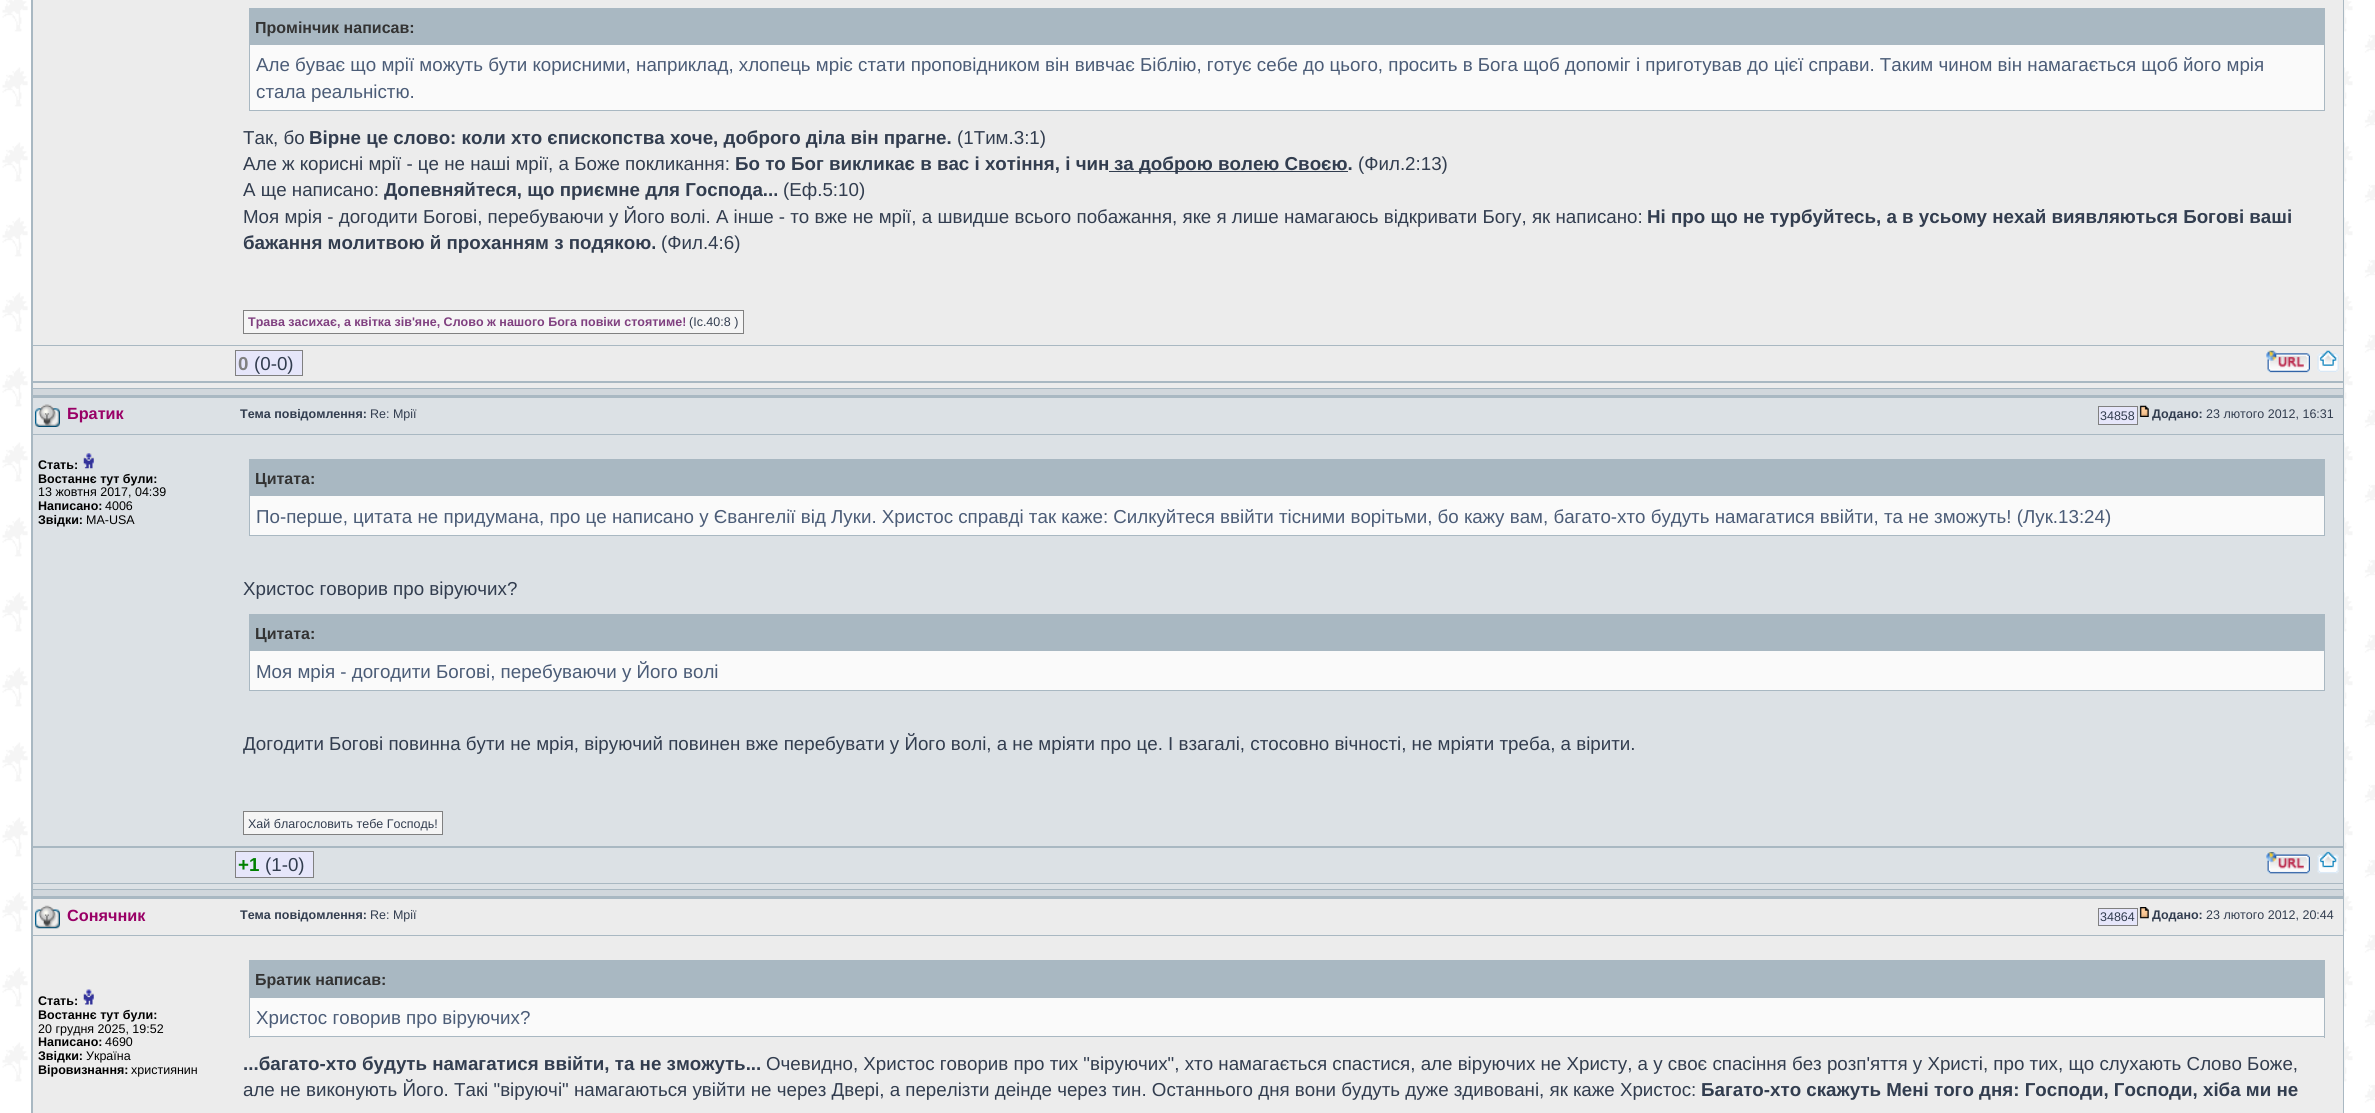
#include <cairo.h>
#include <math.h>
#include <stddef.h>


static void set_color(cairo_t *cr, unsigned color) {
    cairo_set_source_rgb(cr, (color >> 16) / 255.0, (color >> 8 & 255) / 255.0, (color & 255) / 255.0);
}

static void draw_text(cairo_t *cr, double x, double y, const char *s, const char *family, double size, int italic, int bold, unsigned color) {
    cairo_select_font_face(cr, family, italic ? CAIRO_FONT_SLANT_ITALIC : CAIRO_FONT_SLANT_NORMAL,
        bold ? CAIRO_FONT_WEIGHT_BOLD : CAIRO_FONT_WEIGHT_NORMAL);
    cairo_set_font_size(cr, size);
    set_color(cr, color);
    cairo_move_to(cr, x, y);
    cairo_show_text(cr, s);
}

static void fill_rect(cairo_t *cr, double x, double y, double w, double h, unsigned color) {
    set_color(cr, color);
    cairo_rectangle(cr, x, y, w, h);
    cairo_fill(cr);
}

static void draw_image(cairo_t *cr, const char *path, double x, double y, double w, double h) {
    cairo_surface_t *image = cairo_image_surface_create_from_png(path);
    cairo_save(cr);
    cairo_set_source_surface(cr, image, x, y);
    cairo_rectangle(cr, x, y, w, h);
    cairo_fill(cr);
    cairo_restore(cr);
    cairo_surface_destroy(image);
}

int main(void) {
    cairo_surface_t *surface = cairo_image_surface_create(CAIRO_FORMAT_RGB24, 2375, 1113);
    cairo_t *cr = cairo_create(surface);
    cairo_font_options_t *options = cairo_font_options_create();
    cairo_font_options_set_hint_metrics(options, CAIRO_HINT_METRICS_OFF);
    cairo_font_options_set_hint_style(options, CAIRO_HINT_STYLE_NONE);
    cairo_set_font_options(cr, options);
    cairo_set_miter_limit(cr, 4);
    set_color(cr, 0xFFFFFF);
    cairo_paint(cr);
    draw_image(cr, "assets/img1.png", 2, 0, 2373, 1113);
    fill_rect(cr, 31, 0, 2313, 1113, 0xA9B8C2);
    fill_rect(cr, 33, 0, 2310, 345, 0xECECEC);
    fill_rect(cr, 250, 9, 2074, 36, 0xA9B8C2);
    fill_rect(cr, 249, 8, 2076, 1, 0xA9B8C2);
    fill_rect(cr, 2324, 8, 1, 103, 0xA9B8C2);
    fill_rect(cr, 249, 8, 1, 37, 0xA9B8C2);
    draw_text(cr, 255, 33, "Промінчик написав:", "Liberation Sans", 16, 0, 1, 0x333333);
    fill_rect(cr, 250, 45, 2074, 65, 0xFAFAFA);
    fill_rect(cr, 249, 110, 2076, 1, 0xA9B8C2);
    fill_rect(cr, 249, 45, 1, 66, 0xA9B8C2);
    draw_text(cr, 256, 71, "Але буває що мрії можуть бути корисними, наприклад, хлопець мріє стати проповідником він вивчає Біблію, готує себе до цього, просить в Бога щоб допоміг і приготував до цієї справи. Таким чином він намагається щоб його мрія", "Liberation Sans", 18.75, 0, 0, 0x4B5C77);
    draw_text(cr, 256, 98, "стала реальністю.", "Liberation Sans", 18.75, 0, 0, 0x4B5C77);
    draw_text(cr, 243, 144, "Так, бо", "Liberation Sans", 18.75, 0, 0, 0x323D4F);
    draw_text(cr, 309, 144, "Вірне це слово: коли хто єпископства хоче, доброго діла він прагне.", "Liberation Sans", 18.75, 0, 1, 0x323D4F);
    draw_text(cr, 957, 144, "(1Тим.3:1)", "Liberation Sans", 18.75, 0, 0, 0x323D4F);
    draw_text(cr, 243, 170, "Але ж корисні мрії - це не наші мрії, а Боже покликання:", "Liberation Sans", 18.75, 0, 0, 0x323D4F);
    draw_text(cr, 735, 170, "Бо то Бог викликає в вас і хотіння, і чин", "Liberation Sans", 18.75, 0, 1, 0x323D4F);
    fill_rect(cr, 1109, 171, 239, 1, 0x323D4F);
    draw_text(cr, 1114, 170, "за доброю волею Своєю.", "Liberation Sans", 18.75, 0, 1, 0x323D4F);
    draw_text(cr, 1358, 170, "(Фил.2:13)", "Liberation Sans", 18.75, 0, 0, 0x323D4F);
    draw_text(cr, 243, 196, "А ще написано:", "Liberation Sans", 18.75, 0, 0, 0x323D4F);
    draw_text(cr, 384, 196, "Допевняйтеся, що приємне для Господа...", "Liberation Sans", 18.75, 0, 1, 0x323D4F);
    draw_text(cr, 783, 196, "(Еф.5:10)", "Liberation Sans", 18.75, 0, 0, 0x323D4F);
    draw_text(cr, 243, 223, "Моя мрія - догодити Богові, перебуваючи у Його волі. А інше - то вже не мрії, а швидше всього побажання, яке я лише намагаюсь відкривати Богу, як написано:", "Liberation Sans", 18.75, 0, 0, 0x323D4F);
    draw_text(cr, 1647, 223, "Ні про що не турбуйтесь, а в усьому нехай виявляються Богові ваші", "Liberation Sans", 18.75, 0, 1, 0x323D4F);
    draw_text(cr, 243, 249, "бажання молитвою й проханням з подякою.", "Liberation Sans", 18.75, 0, 1, 0x323D4F);
    draw_text(cr, 661, 249, "(Фил.4:6)", "Liberation Sans", 18.75, 0, 0, 0x323D4F);
    set_color(cr, 0xF5F5F5);
    cairo_rectangle(cr, 243.5, 310.5, 500, 23);
    cairo_fill_preserve(cr);
    set_color(cr, 0x808080);
    cairo_set_line_width(cr, 1);
    cairo_stroke(cr);
    draw_text(cr, 248, 326, "Трава засихає, а квітка зів'яне, Слово ж нашого Бога повіки стоятиме!", "Liberation Sans", 12.5, 0, 1, 0x804080);
    draw_text(cr, 689, 326, "(Іс.40:8 )", "Liberation Sans", 12.5, 0, 0, 0x323D4F);
    fill_rect(cr, 33, 346, 2310, 35, 0xECECEC);
    set_color(cr, 0xE6E6FA);
    cairo_rectangle(cr, 235.5, 350.5, 67, 25);
    cairo_fill_preserve(cr);
    set_color(cr, 0x808080);
    cairo_stroke(cr);
    draw_text(cr, 238, 370, "0", "Liberation Sans", 18.75, 0, 1, 0x808080);
    draw_text(cr, 254, 370, "(0-0)", "Liberation Sans", 18.75, 0, 0, 0x323D4F);
    draw_image(cr, "assets/img2.png", 2266, 350, 44, 23);
    draw_image(cr, "assets/img3.png", 2317, 350, 22, 22);
    fill_rect(cr, 33, 383, 2310, 5, 0xECECEC);
    fill_rect(cr, 33, 389, 2310, 6, 0xD1D7DC);
    fill_rect(cr, 33, 398, 2310, 36, 0xDCE1E5);
    draw_image(cr, "assets/img4.png", 35, 404, 25, 23);
    draw_text(cr, 67, 419, "Братик", "Liberation Sans", 16.25, 0, 1, 0x990066);
    draw_text(cr, 240, 418, "Тема повідомлення:", "Liberation Sans", 12.5, 0, 1, 0x323D4F);
    draw_text(cr, 370, 418, "Re: Мрії", "Liberation Sans", 12.5, 0, 0, 0x323D4F);
    set_color(cr, 0xE6E6FA);
    cairo_rectangle(cr, 2098.5, 406.5, 39, 18);
    cairo_fill_preserve(cr);
    set_color(cr, 0x808080);
    cairo_stroke(cr);
    draw_text(cr, 2100, 420, "34858", "Liberation Sans", 12.5, 0, 0, 0x323D4F);
    draw_image(cr, "assets/img5.png", 2139, 405, 10, 12);
    draw_text(cr, 2152, 418, "Додано:", "Liberation Sans", 12.5, 0, 1, 0x323D4F);
    draw_text(cr, 2206, 418, "23 лютого 2012, 16:31", "Liberation Sans", 12.5, 0, 0, 0x323D4F);
    fill_rect(cr, 33, 435, 2310, 411, 0xDCE1E5);
    draw_text(cr, 38, 469, "Стать:", "Liberation Sans", 12.5, 0, 1, 0x000000);
    draw_image(cr, "assets/img6.png", 83, 453, 11, 16);
    draw_text(cr, 38, 483, "Востаннє тут були:", "Liberation Sans", 12.5, 0, 1, 0x000000);
    draw_text(cr, 38, 496, "13 жовтня 2017, 04:39", "Liberation Sans", 12.5, 0, 0, 0x000000);
    draw_text(cr, 38, 510, "Написано:", "Liberation Sans", 12.5, 0, 1, 0x000000);
    draw_text(cr, 105, 510, "4006", "Liberation Sans", 12.5, 0, 0, 0x000000);
    draw_text(cr, 38, 524, "Звідки:", "Liberation Sans", 12.5, 0, 1, 0x000000);
    draw_text(cr, 86, 524, "MA-USA", "Liberation Sans", 12.5, 0, 0, 0x000000);
    fill_rect(cr, 250, 460, 2074, 36, 0xA9B8C2);
    fill_rect(cr, 249, 459, 2076, 1, 0xA9B8C2);
    fill_rect(cr, 2324, 459, 1, 77, 0xA9B8C2);
    fill_rect(cr, 249, 459, 1, 37, 0xA9B8C2);
    draw_text(cr, 255, 484, "Цитата:", "Liberation Sans", 16, 0, 1, 0x333333);
    fill_rect(cr, 250, 496, 2074, 39, 0xFAFAFA);
    fill_rect(cr, 249, 535, 2076, 1, 0xA9B8C2);
    fill_rect(cr, 249, 496, 1, 40, 0xA9B8C2);
    draw_text(cr, 256, 523, "По-перше, цитата не придумана, про це написано у Євангелії від Луки. Христос справді так каже: Силкуйтеся ввійти тісними ворітьми, бо кажу вам, багато-хто будуть намагатися ввійти, та не зможуть! (Лук.13:24)", "Liberation Sans", 18.75, 0, 0, 0x4B5C77);
    draw_text(cr, 243, 595, "Христос говорив про віруючих?", "Liberation Sans", 18.75, 0, 0, 0x323D4F);
    fill_rect(cr, 250, 615, 2074, 36, 0xA9B8C2);
    fill_rect(cr, 249, 614, 2076, 1, 0xA9B8C2);
    fill_rect(cr, 2324, 614, 1, 77, 0xA9B8C2);
    fill_rect(cr, 249, 614, 1, 37, 0xA9B8C2);
    draw_text(cr, 255, 639, "Цитата:", "Liberation Sans", 16, 0, 1, 0x333333);
    fill_rect(cr, 250, 651, 2074, 39, 0xFAFAFA);
    fill_rect(cr, 249, 690, 2076, 1, 0xA9B8C2);
    fill_rect(cr, 249, 651, 1, 40, 0xA9B8C2);
    draw_text(cr, 256, 678, "Моя мрія - догодити Богові, перебуваючи у Його волі", "Liberation Sans", 18.75, 0, 0, 0x4B5C77);
    draw_text(cr, 243, 750, "Догодити Богові повинна бути не мрія, віруючий повинен вже перебувати у Його волі, а не мріяти про це. І взагалі, стосовно вічності, не мріяти треба, а вірити.", "Liberation Sans", 18.75, 0, 0, 0x323D4F);
    set_color(cr, 0xF5F5F5);
    cairo_rectangle(cr, 243.5, 811.5, 199, 23);
    cairo_fill_preserve(cr);
    set_color(cr, 0x808080);
    cairo_stroke(cr);
    draw_text(cr, 248, 828, "Хай благословить тебе Господь!", "Liberation Sans", 12.5, 0, 0, 0x323D4F);
    fill_rect(cr, 33, 848, 2310, 35, 0xDCE1E5);
    set_color(cr, 0xE6E6FA);
    cairo_rectangle(cr, 235.5, 851.5, 78, 26);
    cairo_fill_preserve(cr);
    set_color(cr, 0x808080);
    cairo_stroke(cr);
    draw_text(cr, 238, 871, "+1", "Liberation Sans", 18.75, 0, 1, 0x008000);
    draw_text(cr, 265, 871, "(1-0)", "Liberation Sans", 18.75, 0, 0, 0x323D4F);
    draw_image(cr, "assets/img7.png", 2266, 852, 44, 22);
    draw_image(cr, "assets/img8.png", 2317, 851, 22, 23);
    fill_rect(cr, 33, 884, 2310, 5, 0xDCE1E5);
    fill_rect(cr, 33, 890, 2310, 6, 0xD1D7DC);
    fill_rect(cr, 33, 899, 2310, 36, 0xECECEC);
    draw_image(cr, "assets/img9.png", 35, 905, 25, 24);
    draw_text(cr, 67, 921, "Сонячник", "Liberation Sans", 16.25, 0, 1, 0x990066);
    draw_text(cr, 240, 919, "Тема повідомлення:", "Liberation Sans", 12.5, 0, 1, 0x323D4F);
    draw_text(cr, 370, 919, "Re: Мрії", "Liberation Sans", 12.5, 0, 0, 0x323D4F);
    set_color(cr, 0xE6E6FA);
    cairo_rectangle(cr, 2098.5, 908.5, 39, 17);
    cairo_fill_preserve(cr);
    set_color(cr, 0x808080);
    cairo_stroke(cr);
    draw_text(cr, 2100, 921, "34864", "Liberation Sans", 12.5, 0, 0, 0x323D4F);
    draw_image(cr, "assets/img10.png", 2139, 907, 10, 12);
    draw_text(cr, 2152, 919, "Додано:", "Liberation Sans", 12.5, 0, 1, 0x323D4F);
    draw_text(cr, 2206, 919, "23 лютого 2012, 20:44", "Liberation Sans", 12.5, 0, 0, 0x323D4F);
    fill_rect(cr, 33, 936, 2310, 177, 0xECECEC);
    draw_text(cr, 38, 1005, "Стать:", "Liberation Sans", 12.5, 0, 1, 0x000000);
    draw_image(cr, "assets/img11.png", 83, 989, 11, 16);
    draw_text(cr, 38, 1019, "Востаннє тут були:", "Liberation Sans", 12.5, 0, 1, 0x000000);
    draw_text(cr, 38, 1033, "20 грудня 2025, 19:52", "Liberation Sans", 12.5, 0, 0, 0x000000);
    draw_text(cr, 38, 1046, "Написано:", "Liberation Sans", 12.5, 0, 1, 0x000000);
    draw_text(cr, 105, 1046, "4690", "Liberation Sans", 12.5, 0, 0, 0x000000);
    draw_text(cr, 38, 1060, "Звідки:", "Liberation Sans", 12.5, 0, 1, 0x000000);
    draw_text(cr, 86, 1060, "Україна", "Liberation Sans", 12.5, 0, 0, 0x000000);
    draw_text(cr, 38, 1074, "Віровизнання:", "Liberation Sans", 12.5, 0, 1, 0x000000);
    draw_text(cr, 131, 1074, "християнин", "Liberation Sans", 12.5, 0, 0, 0x000000);
    fill_rect(cr, 250, 961, 2074, 37, 0xA9B8C2);
    fill_rect(cr, 249, 960, 2076, 1, 0xA9B8C2);
    fill_rect(cr, 2324, 960, 1, 78, 0xA9B8C2);
    fill_rect(cr, 249, 960, 1, 38, 0xA9B8C2);
    draw_text(cr, 255, 985, "Братик написав:", "Liberation Sans", 16, 0, 1, 0x333333);
    fill_rect(cr, 250, 998, 2074, 38, 0xFAFAFA);
    fill_rect(cr, 249, 1036, 2076, 1, 0xA9B8C2);
    fill_rect(cr, 249, 998, 1, 40, 0xA9B8C2);
    draw_text(cr, 256, 1024, "Христос говорив про віруючих?", "Liberation Sans", 18.75, 0, 0, 0x4B5C77);
    draw_text(cr, 243, 1070, "...багато-хто будуть намагатися ввійти, та не зможуть...", "Liberation Sans", 18.75, 0, 1, 0x323D4F);
    draw_text(cr, 766, 1070, "Очевидно, Христос говорив про тих \"віруючих\", хто намагається спастися, але віруючих не Христу, а у своє спасіння без розп'яття у Христі, про тих, що слухають Слово Боже,", "Liberation Sans", 18.75, 0, 0, 0x323D4F);
    draw_text(cr, 243, 1096, "але не виконують Його. Такі \"віруючі\" намагаються увійти не через Двері, а перелізти деінде через тин. Останнього дня вони будуть дуже здивовані, як каже Христос:", "Liberation Sans", 18.75, 0, 0, 0x323D4F);
    draw_text(cr, 1701, 1096, "Багато-хто скажуть Мені того дня: Господи, Господи, хіба ми не", "Liberation Sans", 18.75, 0, 1, 0x323D4F);
    cairo_surface_write_to_png(surface, "output.png");
    cairo_font_options_destroy(options);
    cairo_destroy(cr);
    cairo_surface_destroy(surface);
    return 0;
}
